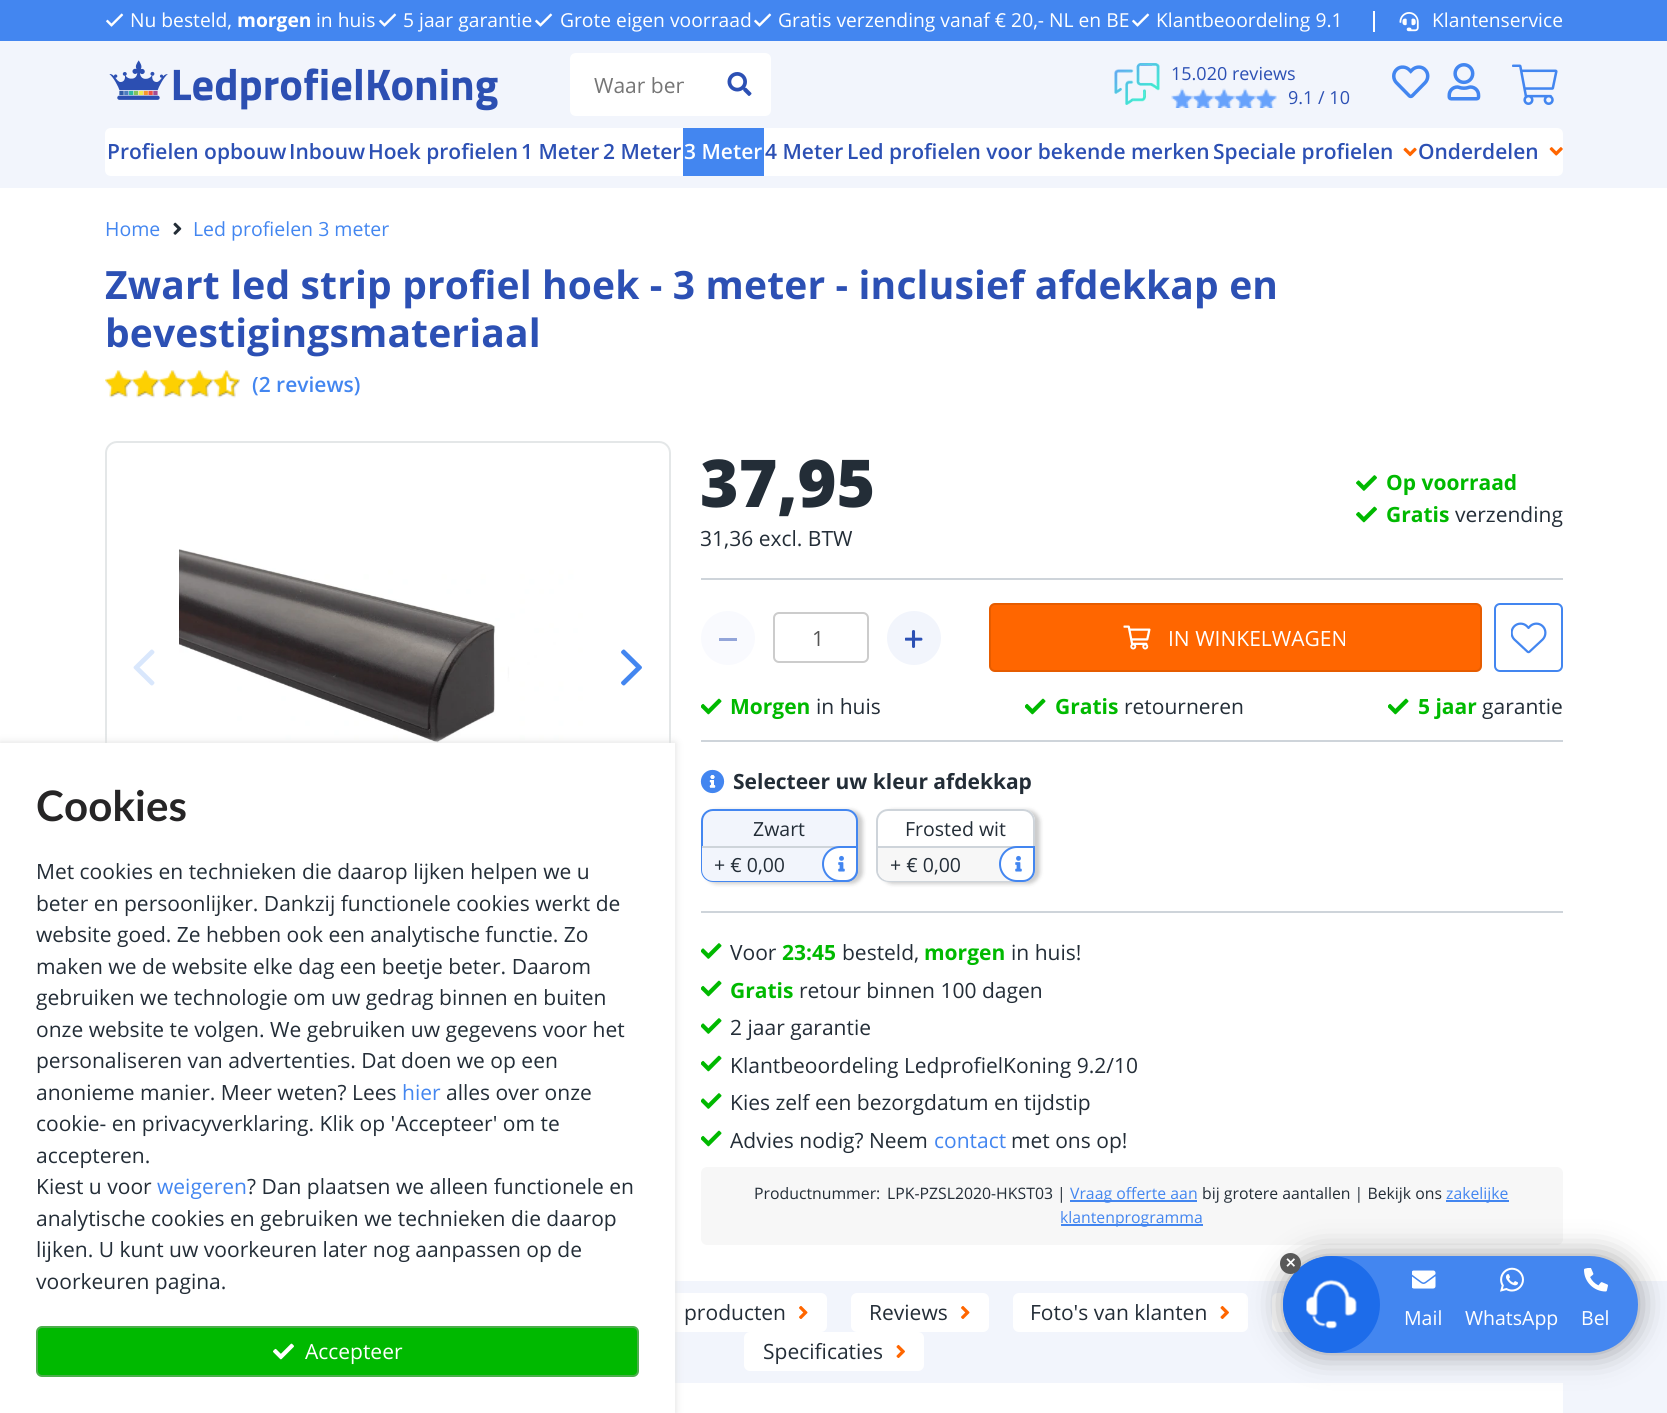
#include <cairo.h>
#include <math.h>
#include <stddef.h>


static void set_color(cairo_t *cr, unsigned color) {
    cairo_set_source_rgb(cr, (color >> 16) / 255.0, (color >> 8 & 255) / 255.0, (color & 255) / 255.0);
}

static void draw_text(cairo_t *cr, double x, double y, const char *s, const char *family, double size, int italic, int bold, unsigned color) {
    cairo_select_font_face(cr, family, italic ? CAIRO_FONT_SLANT_ITALIC : CAIRO_FONT_SLANT_NORMAL,
        bold ? CAIRO_FONT_WEIGHT_BOLD : CAIRO_FONT_WEIGHT_NORMAL);
    cairo_set_font_size(cr, size);
    set_color(cr, color);
    cairo_move_to(cr, x, y);
    cairo_show_text(cr, s);
}

static void draw_spaced(cairo_t *cr, double x, double y, const char *s, double letter, double word) {
    cairo_move_to(cr, x, y);
    while (*s) {
        char ch[5] = {0};
        int n = 0;
        do ch[n++] = *s++; while ((*s & 0xC0) == 0x80);
        cairo_show_text(cr, ch);
        cairo_rel_move_to(cr, letter + word * (*ch == ' '), 0);
    }
}

static void fill_rect(cairo_t *cr, double x, double y, double w, double h, unsigned color) {
    set_color(cr, color);
    cairo_rectangle(cr, x, y, w, h);
    cairo_fill(cr);
}

static void rounded_rect(cairo_t *cr, double x, double y, double w, double h, double r) {
    cairo_new_sub_path(cr);
    cairo_arc(cr, x + w - r, y + h - r, r, 0, M_PI / 2);
    cairo_arc(cr, x + r, y + h - r, r, M_PI / 2, M_PI);
    cairo_arc(cr, x + r, y + r, r, M_PI, 1.5 * M_PI);
    cairo_arc(cr, x + w - r, y + r, r, 1.5 * M_PI, 2 * M_PI);
    cairo_close_path(cr);
}

static void draw_shadow(cairo_t *cr, double x, double y, double w, double h, double r, double blur, double alpha) {
    cairo_push_group_with_content(cr, CAIRO_CONTENT_ALPHA);
    cairo_set_operator(cr, CAIRO_OPERATOR_SOURCE);
    for (int i = 15; i >= -15 && fmin(w, h) + blur * i / 3 > 0; i -= 2) {
        double e = blur * i / 6;
        cairo_set_source_rgba(cr, 0, 0, 0, alpha * erfc((i - 1) / 8.5) / 2);
        rounded_rect(cr, x - e, y - e, w + 2 * e, h + 2 * e, fmax(0, fmin(r + e + blur * .6, fmin(w, h) / 2 + e)));
        cairo_fill(cr);
    }
    cairo_pattern_t *soft = cairo_pop_group(cr);
    cairo_mask(cr, soft);
    cairo_pattern_destroy(soft);
}

static void draw_image(cairo_t *cr, const char *path, double x, double y, double w, double h) {
    cairo_surface_t *image = cairo_image_surface_create_from_png(path);
    cairo_save(cr);
    cairo_set_source_surface(cr, image, x, y);
    cairo_rectangle(cr, x, y, w, h);
    cairo_fill(cr);
    cairo_restore(cr);
    cairo_surface_destroy(image);
}

int main(void) {
    cairo_surface_t *surface = cairo_image_surface_create(CAIRO_FORMAT_RGB24, 1667, 1413);
    cairo_t *cr = cairo_create(surface);
    cairo_font_options_t *options = cairo_font_options_create();
    cairo_font_options_set_hint_metrics(options, CAIRO_HINT_METRICS_OFF);
    cairo_font_options_set_hint_style(options, CAIRO_HINT_STYLE_NONE);
    cairo_set_font_options(cr, options);
    cairo_set_miter_limit(cr, 4);
    set_color(cr, 0xFFFFFF);
    cairo_paint(cr);
    fill_rect(cr, 0, 0, 1667, 41, 0x4386F0);
    draw_image(cr, "assets/img1.png", 106, 13, 18, 14);
    draw_text(cr, 130, 27, "Nu besteld,", "Open Sans", 19.25, 0, 0, 0xFFFFFF);
    draw_text(cr, 237, 27, "morgen", "Open Sans", 19.25, 0, 1, 0xFFFFFF);
    draw_text(cr, 316, 27, "in huis", "Open Sans", 19.25, 0, 0, 0xFFFFFF);
    draw_image(cr, "assets/img1.png", 379, 13, 18, 14);
    draw_text(cr, 403, 27, "5 jaar garantie", "Open Sans", 19.25, 0, 0, 0xFFFFFF);
    draw_image(cr, "assets/img1.png", 535, 13, 18, 14);
    draw_text(cr, 560, 27, "Grote eigen voorraad", "Open Sans", 19.25, 0, 0, 0xFFFFFF);
    draw_image(cr, "assets/img1.png", 754, 13, 18, 14);
    draw_text(cr, 778, 27, "Gratis verzending vanaf € 20,- NL en BE", "Open Sans", 19.25, 0, 0, 0xFFFFFF);
    draw_image(cr, "assets/img1.png", 1132, 13, 18, 14);
    draw_text(cr, 1156, 27, "Klantbeoordeling 9.1", "Open Sans", 19.25, 0, 0, 0xFFFFFF);
    fill_rect(cr, 1373, 11, 2, 21, 0xFFFFFF);
    draw_image(cr, "assets/img2.png", 1399, 12, 20, 20);
    draw_text(cr, 1432, 27, "Klantenservice", "Open Sans", 19.25, 0, 0, 0xFFFFFF);
    fill_rect(cr, 0, 41, 1667, 147, 0xF2F5FC);
    draw_image(cr, "assets/img3.png", 109, 60, 389, 51);
    set_color(cr, 0xFFFFFF);
    cairo_new_path(cr);
    cairo_move_to(cr, 576, 53);
    cairo_line_to(cr, 708, 53);
    cairo_line_to(cr, 708, 116);
    cairo_line_to(cr, 576, 116);
    cairo_curve_to(cr, 572.5, 116, 570, 113.5, 570, 110);
    cairo_line_to(cr, 570, 59);
    cairo_curve_to(cr, 570, 55.5, 572.5, 53, 576, 53);
    cairo_close_path(cr);
    cairo_fill(cr);
    cairo_save(cr);
    cairo_rectangle(cr, 594, 71, 90, 28);
    cairo_clip(cr);
    draw_text(cr, 594, 93, "Waar ben", "Open Sans", 21, 0, 0, 0x757575);
    cairo_restore(cr);
    cairo_new_path(cr);
    cairo_move_to(cr, 708, 53);
    cairo_line_to(cr, 765, 53);
    cairo_curve_to(cr, 768.5, 53, 771, 55.5, 771, 59);
    cairo_line_to(cr, 771, 110);
    cairo_curve_to(cr, 771, 113.5, 768.5, 116, 765, 116);
    cairo_line_to(cr, 708, 116);
    cairo_close_path(cr);
    cairo_fill(cr);
    draw_image(cr, "assets/img4.png", 727, 72, 25, 24);
    draw_image(cr, "assets/img5.png", 1114, 63, 46, 42);
    draw_text(cr, 1171, 80, "15.020 reviews", "Open Sans", 18, 0, 0, 0x2C50B4);
    draw_image(cr, "assets/img6.png", 1171, 88, 106, 20);
    draw_text(cr, 1288, 104, "9.1 / 10", "Open Sans", 18, 0, 0, 0x2C50B4);
    draw_image(cr, "assets/img7.png", 1392, 65, 38, 34);
    draw_image(cr, "assets/img8.png", 1447, 63, 34, 38);
    draw_image(cr, "assets/img9.png", 1512, 64, 46, 41);
    set_color(cr, 0xFFFFFF);
    cairo_new_path(cr);
    cairo_move_to(cr, 111, 128);
    cairo_line_to(cr, 288, 128);
    cairo_line_to(cr, 288, 176);
    cairo_line_to(cr, 111, 176);
    cairo_curve_to(cr, 107.5, 176, 105, 173.5, 105, 170);
    cairo_line_to(cr, 105, 134);
    cairo_curve_to(cr, 105, 130.5, 107.5, 128, 111, 128);
    cairo_close_path(cr);
    cairo_fill(cr);
    draw_text(cr, 107, 159, "Profielen opbouw", "Open Sans SemiBold", 21, 0, 0, 0x2C50B4);
    fill_rect(cr, 288, 128, 395, 48, 0xFFFFFF);
    draw_text(cr, 289, 159, "Inbouw", "Open Sans SemiBold", 21, 0, 0, 0x2C50B4);
    draw_text(cr, 368, 159, "Hoek profielen", "Open Sans SemiBold", 21, 0, 0, 0x2C50B4);
    draw_text(cr, 521, 159, "1 Meter", "Open Sans SemiBold", 21, 0, 0, 0x2C50B4);
    draw_text(cr, 603, 159, "2 Meter", "Open Sans SemiBold", 21, 0, 0, 0x2C50B4);
    fill_rect(cr, 683, 128, 81, 48, 0x4386F0);
    draw_text(cr, 684, 159, "3 Meter", "Open Sans SemiBold", 21, 0, 0, 0xFFFFFF);
    fill_rect(cr, 764, 128, 654, 48, 0xFFFFFF);
    draw_text(cr, 765, 159, "4 Meter", "Open Sans SemiBold", 21, 0, 0, 0x2C50B4);
    draw_text(cr, 847, 159, "Led profielen voor bekende merken", "Open Sans SemiBold", 21, 0, 0, 0x2C50B4);
    draw_text(cr, 1213, 159, "Speciale profielen", "Open Sans SemiBold", 21, 0, 0, 0x2C50B4);
    draw_image(cr, "assets/img10.png", 1403, 147, 14, 10);
    set_color(cr, 0xFFFFFF);
    cairo_new_path(cr);
    cairo_move_to(cr, 1418, 128);
    cairo_line_to(cr, 1557, 128);
    cairo_curve_to(cr, 1560.5, 128, 1563, 130.5, 1563, 134);
    cairo_line_to(cr, 1563, 170);
    cairo_curve_to(cr, 1563, 173.5, 1560.5, 176, 1557, 176);
    cairo_line_to(cr, 1418, 176);
    cairo_close_path(cr);
    cairo_fill(cr);
    draw_text(cr, 1418, 159, "Onderdelen", "Open Sans SemiBold", 21, 0, 0, 0x2C50B4);
    draw_image(cr, "assets/img11.png", 1549, 147, 14, 9);
    draw_text(cr, 105, 236, "Home", "Open Sans", 19.5, 0, 0, 0x4386F0);
    draw_image(cr, "assets/img12.png", 173, 222, 9, 13);
    draw_text(cr, 193, 236, "Led profielen 3 meter", "Open Sans", 19.5, 0, 0, 0x4386F0);
    cairo_select_font_face(cr, "Open Sans", CAIRO_FONT_SLANT_NORMAL, CAIRO_FONT_WEIGHT_BOLD);
    cairo_set_font_size(cr, 39);
    set_color(cr, 0x2C50B4);
    draw_spaced(cr, 105, 299, "Zwart led strip profiel hoek - 3 meter - inclusief afdekkap en", 0.15, 0);
    draw_spaced(cr, 105, 347, "bevestigingsmateriaal", 0.15, 0);
    draw_image(cr, "assets/img13.png", 105, 370, 135, 28);
    draw_text(cr, 252, 392, "(2 reviews)", "Open Sans SemiBold", 21, 0, 0, 0x4386F0);
    rounded_rect(cr, 106, 442, 564, 450, 11);
    set_color(cr, 0xE4E7E8);
    cairo_stroke(cr);
    draw_image(cr, "assets/img14.png", 133, 649, 22, 37);
    draw_image(cr, "assets/img15.png", 179, 549, 409, 194);
    draw_image(cr, "assets/img16.png", 621, 649, 21, 37);
    draw_text(cr, 700, 507, "37,95", "Open Sans ExtraBold", 66, 0, 0, 0x232D37);
    draw_text(cr, 700, 546, "31,36 excl. BTW", "Open Sans", 21, 0, 0, 0x232D37);
    draw_image(cr, "assets/img17.png", 1356, 475, 21, 16);
    draw_text(cr, 1386, 490, "Op voorraad", "Open Sans", 21, 0, 1, 0x00B900);
    draw_image(cr, "assets/img18.png", 1356, 506, 21, 17);
    draw_text(cr, 1386, 522, "Gratis", "Open Sans", 21, 0, 1, 0x00B900);
    draw_text(cr, 1455, 522, "verzending", "Open Sans", 21, 0, 0, 0x232D37);
    fill_rect(cr, 701, 578, 862, 2, 0xCED4DA);
    set_color(cr, 0xF9FAFE);
    cairo_new_path(cr);
    cairo_arc(cr, 728, 638, 27, 0, 2 * M_PI);
    cairo_fill(cr);
    fill_rect(cr, 719, 638, 18, 3, 0x93A5D9);
    rounded_rect(cr, 774, 613, 94, 49, 5);
    set_color(cr, 0xCCCCCC);
    cairo_stroke(cr);
    draw_text(cr, 812, 646, "1", "Open Sans", 21, 0, 0, 0x555555);
    set_color(cr, 0xF2F5FC);
    cairo_new_path(cr);
    cairo_arc(cr, 914, 638, 27, 0, 2 * M_PI);
    cairo_fill(cr);
    draw_image(cr, "assets/img19.png", 905, 630, 18, 18);
    set_color(cr, 0xFF6600);
    rounded_rect(cr, 989, 603, 493, 69, 6);
    cairo_fill(cr);
    rounded_rect(cr, 990, 604, 491, 67, 5);
    cairo_set_source_rgba(cr, 0, 0, 0, 0.1);
    cairo_stroke(cr);
    draw_image(cr, "assets/img20.png", 1123, 625, 28, 25);
    draw_text(cr, 1168, 646, "IN WINKELWAGEN", "Open Sans", 21, 0, 0, 0xFFFFFF);
    draw_image(cr, "assets/img21.png", 1511, 622, 36, 32);
    rounded_rect(cr, 1495, 604, 67, 67, 5);
    set_color(cr, 0x4386F0);
    cairo_stroke(cr);
    fill_rect(cr, 701, 740, 862, 2, 0xCED4DA);
    draw_image(cr, "assets/img22.png", 701, 698, 21, 17);
    draw_text(cr, 730, 714, "Morgen", "Open Sans", 21, 0, 1, 0x00B900);
    draw_text(cr, 816, 714, "in huis", "Open Sans", 21, 0, 0, 0x232D37);
    draw_image(cr, "assets/img22.png", 1025, 698, 21, 17);
    draw_text(cr, 1055, 714, "Gratis", "Open Sans", 21, 0, 1, 0x00B900);
    draw_text(cr, 1124, 714, "retourneren", "Open Sans", 21, 0, 0, 0x232D37);
    draw_image(cr, "assets/img22.png", 1388, 698, 21, 17);
    draw_text(cr, 1418, 714, "5 jaar", "Open Sans", 21, 0, 1, 0x00B900);
    draw_text(cr, 1482, 714, "garantie", "Open Sans", 21, 0, 0, 0x232D37);
    fill_rect(cr, 701, 911, 862, 2, 0xCED4DA);
    draw_image(cr, "assets/img23.png", 700, 769, 25, 25);
    draw_text(cr, 733, 789, "Selecteer uw kleur afdekkap", "Open Sans", 21, 0, 1, 0x232D37);
    set_color(cr, 0x000000);
    draw_shadow(cr, 705, 810, 158, 74, 12, 2, 0.2);
    set_color(cr, 0xF2F5FC);
    rounded_rect(cr, 702, 810, 155, 71, 11);
    cairo_fill_preserve(cr);
    set_color(cr, 0x4386F0);
    cairo_stroke(cr);
    draw_text(cr, 753, 836, "Zwart", "Open Sans", 19.5, 0, 0, 0x232D37);
    set_color(cr, 0xF2F5FC);
    cairo_new_path(cr);
    cairo_move_to(cr, 702, 846);
    cairo_line_to(cr, 857, 846);
    cairo_line_to(cr, 857, 870);
    cairo_curve_to(cr, 857, 876, 852, 881, 846, 881);
    cairo_line_to(cr, 713, 881);
    cairo_curve_to(cr, 707, 881, 702, 876, 702, 870);
    cairo_close_path(cr);
    cairo_fill(cr);
    fill_rect(cr, 702, 846, 138, 2, 0xCED4DA);
    draw_text(cr, 714, 872, "+ € 0,00", "Open Sans", 19.5, 0, 0, 0x232D37);
    set_color(cr, 0xFFFFFF);
    cairo_new_path(cr);
    cairo_move_to(cr, 840, 847);
    cairo_line_to(cr, 857, 847);
    cairo_line_to(cr, 857, 870);
    cairo_curve_to(cr, 857, 876, 852, 881, 846, 881);
    cairo_line_to(cr, 840, 881);
    cairo_curve_to(cr, 830.5, 881, 823, 873.5, 823, 864);
    cairo_curve_to(cr, 823, 854.5, 830.5, 847, 840, 847);
    cairo_close_path(cr);
    cairo_fill_preserve(cr);
    set_color(cr, 0x4386F0);
    cairo_stroke(cr);
    draw_image(cr, "assets/img24.png", 838, 855, 7, 17);
    cairo_save(cr);
    cairo_set_fill_rule(cr, CAIRO_FILL_RULE_EVEN_ODD);
    cairo_new_path(cr);
    cairo_move_to(cr, 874, 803);
    cairo_line_to(cr, 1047, 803);
    cairo_line_to(cr, 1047, 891);
    cairo_line_to(cr, 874, 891);
    cairo_close_path(cr);
    cairo_move_to(cr, 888, 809);
    cairo_line_to(cr, 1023, 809);
    cairo_curve_to(cr, 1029.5, 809, 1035, 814.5, 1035, 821);
    cairo_line_to(cr, 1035, 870);
    cairo_curve_to(cr, 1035, 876.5, 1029.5, 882, 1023, 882);
    cairo_line_to(cr, 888, 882);
    cairo_curve_to(cr, 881.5, 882, 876, 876.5, 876, 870);
    cairo_line_to(cr, 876, 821);
    cairo_curve_to(cr, 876, 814.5, 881.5, 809, 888, 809);
    cairo_close_path(cr);
    cairo_clip(cr);
    set_color(cr, 0x000000);
    draw_shadow(cr, 881, 810, 159, 74, 12, 2, 0.2);
    cairo_restore(cr);
    rounded_rect(cr, 877, 810, 157, 71, 11);
    set_color(cr, 0xCED4DA);
    cairo_stroke(cr);
    draw_text(cr, 905, 836, "Frosted wit", "Open Sans", 19.5, 0, 0, 0x232D37);
    set_color(cr, 0xF7F7F7);
    cairo_new_path(cr);
    cairo_move_to(cr, 878, 846);
    cairo_line_to(cr, 1034, 846);
    cairo_line_to(cr, 1034, 870);
    cairo_curve_to(cr, 1034, 876, 1029, 881, 1023, 881);
    cairo_line_to(cr, 889, 881);
    cairo_curve_to(cr, 883, 881, 878, 876, 878, 870);
    cairo_close_path(cr);
    cairo_fill(cr);
    fill_rect(cr, 878, 846, 139, 2, 0xCED4DA);
    draw_text(cr, 890, 872, "+ € 0,00", "Open Sans", 19.5, 0, 0, 0x232D37);
    set_color(cr, 0xFFFFFF);
    cairo_new_path(cr);
    cairo_move_to(cr, 1017, 847);
    cairo_line_to(cr, 1034, 847);
    cairo_line_to(cr, 1034, 870);
    cairo_curve_to(cr, 1034, 876, 1029, 881, 1023, 881);
    cairo_line_to(cr, 1017, 881);
    cairo_curve_to(cr, 1007.5, 881, 1000, 873.5, 1000, 864);
    cairo_curve_to(cr, 1000, 854.5, 1007.5, 847, 1017, 847);
    cairo_close_path(cr);
    cairo_fill_preserve(cr);
    set_color(cr, 0x4386F0);
    cairo_stroke(cr);
    draw_image(cr, "assets/img24.png", 1015, 855, 7, 17);
    draw_image(cr, "assets/img25.png", 701, 943, 21, 16);
    draw_text(cr, 730, 960, "Voor", "Open Sans", 21, 0, 0, 0x232D37);
    draw_text(cr, 782, 960, "23:45", "Open Sans", 21, 0, 1, 0x00B900);
    draw_text(cr, 842, 960, "besteld,", "Open Sans", 21, 0, 0, 0x232D37);
    draw_text(cr, 924, 960, "morgen", "Open Sans", 21, 0, 1, 0x00B900);
    draw_text(cr, 1011, 960, "in huis!", "Open Sans", 21, 0, 0, 0x232D37);
    draw_image(cr, "assets/img22.png", 701, 980, 21, 17);
    draw_text(cr, 730, 998, "Gratis", "Open Sans", 21, 0, 1, 0x00B900);
    draw_text(cr, 799, 998, "retour binnen 100 dagen", "Open Sans", 21, 0, 0, 0x232D37);
    draw_image(cr, "assets/img25.png", 701, 1018, 21, 16);
    draw_text(cr, 730, 1035, "2 jaar garantie", "Open Sans", 21, 0, 0, 0x232D37);
    draw_image(cr, "assets/img22.png", 701, 1055, 21, 17);
    draw_text(cr, 730, 1073, "Klantbeoordeling LedprofielKoning 9.2/10", "Open Sans", 21, 0, 0, 0x232D37);
    draw_image(cr, "assets/img25.png", 701, 1093, 21, 16);
    draw_text(cr, 730, 1110, "Kies zelf een bezorgdatum en tijdstip", "Open Sans", 21, 0, 0, 0x232D37);
    draw_image(cr, "assets/img22.png", 701, 1130, 21, 17);
    draw_text(cr, 730, 1148, "Advies nodig? Neem", "Open Sans", 21, 0, 0, 0x232D37);
    draw_text(cr, 934, 1148, "contact", "Open Sans", 21, 0, 0, 0x4386F0);
    draw_text(cr, 1011, 1148, "met ons op!", "Open Sans", 21, 0, 0, 0x232D37);
    set_color(cr, 0xF7F7F7);
    rounded_rect(cr, 701, 1167, 862, 78, 6);
    cairo_fill(cr);
    draw_text(cr, 754, 1199, "Productnummer:", "Open Sans", 15.8, 0, 0, 0x232D37);
    draw_text(cr, 887, 1199, "LPK-PZSL2020-HKST03 |", "Open Sans", 15.8, 0, 0, 0x232D37);
    fill_rect(cr, 1070, 1200, 127, 2, 0x4386F0);
    draw_text(cr, 1070, 1199, "Vraag offerte aan", "Open Sans", 15.8, 0, 0, 0x4386F0);
    draw_text(cr, 1202, 1199, "bij grotere aantallen | Bekijk ons", "Open Sans", 15.8, 0, 0, 0x232D37);
    fill_rect(cr, 1446, 1200, 63, 2, 0x4386F0);
    draw_text(cr, 1446, 1199, "zakelijke", "Open Sans", 15.8, 0, 0, 0x4386F0);
    fill_rect(cr, 1061, 1224, 142, 2, 0x4386F0);
    draw_text(cr, 1060, 1223, "klantenprogramma", "Open Sans", 15.8, 0, 0, 0x4386F0);
    fill_rect(cr, 675, 1281, 992, 132, 0xF2F5FC);
    set_color(cr, 0xFFFFFF);
    rounded_rect(cr, 540, 1293, 287, 39, 6);
    cairo_fill(cr);
    draw_text(cr, 684, 1320, "producten", "Open Sans", 21, 0, 0, 0x232D37);
    draw_image(cr, "assets/img26.png", 799, 1306, 9, 13);
    set_color(cr, 0xFFFFFF);
    rounded_rect(cr, 851, 1293, 138, 39, 6);
    cairo_fill(cr);
    draw_text(cr, 869, 1320, "Reviews", "Open Sans", 21, 0, 0, 0x232D37);
    draw_image(cr, "assets/img26.png", 961, 1306, 9, 13);
    set_color(cr, 0xFFFFFF);
    rounded_rect(cr, 1013, 1293, 235, 39, 6);
    cairo_fill(cr);
    draw_text(cr, 1030, 1320, "Foto's van klanten", "Open Sans", 21, 0, 0, 0x232D37);
    draw_image(cr, "assets/img27.png", 1220, 1305, 9, 14);
    set_color(cr, 0xFFFFFF);
    rounded_rect(cr, 1272, 1293, 236, 39, 6);
    cairo_fill(cr);
    rounded_rect(cr, 744, 1332, 180, 39, 6);
    cairo_fill(cr);
    draw_text(cr, 763, 1359, "Specificaties", "Open Sans", 21, 0, 0, 0x232D37);
    draw_image(cr, "assets/img27.png", 896, 1344, 9, 14);
    fill_rect(cr, 675, 1383, 888, 30, 0xFFFFFF);
    set_color(cr, 0x000000);
    draw_shadow(cr, 1283, 1256, 355, 97, 48.5, 15, 0.4);
    set_color(cr, 0x4386F0);
    rounded_rect(cr, 1283, 1256, 355, 97, 48.5);
    cairo_fill(cr);
    set_color(cr, 0x1D6CEA);
    cairo_arc(cr, 1331.5, 1304.5, 48.5, 0, 2 * M_PI);
    cairo_fill(cr);
    set_color(cr, 0x595959);
    cairo_arc(cr, 1290.5, 1263.5, 10.5, 0, 2 * M_PI);
    cairo_fill(cr);
    draw_image(cr, "assets/img28.png", 1286, 1258, 9, 9);
    draw_image(cr, "assets/img29.png", 1306, 1279, 51, 50);
    draw_image(cr, "assets/img30.png", 1412, 1270, 24, 19);
    draw_text(cr, 1404, 1325, "Mail", "Open Sans", 19.5, 0, 0, 0xFFFFFF);
    draw_image(cr, "assets/img31.png", 1500, 1267, 24, 25);
    draw_text(cr, 1465, 1325, "WhatsApp", "Open Sans", 19.5, 0, 0, 0xFFFFFF);
    draw_image(cr, "assets/img32.png", 1584, 1268, 24, 24);
    draw_text(cr, 1581, 1325, "Bel", "Open Sans", 19.5, 0, 0, 0xFFFFFF);
    set_color(cr, 0xDDDDDD);
    draw_shadow(cr, 0, 743, 675, 670, 0, 4, 1);
    fill_rect(cr, 0, 743, 675, 670, 0xFFFFFF);
    cairo_select_font_face(cr, "Lato", CAIRO_FONT_SLANT_NORMAL, CAIRO_FONT_WEIGHT_BOLD);
    cairo_set_font_size(cr, 42);
    set_color(cr, 0x262526);
    draw_spaced(cr, 36, 821, "Cookies", 0.15, 0);
    draw_text(cr, 36, 879, "Met cookies en technieken die daarop lijken helpen we u", "Open Sans", 21, 0, 0, 0x232D37);
    draw_text(cr, 36, 911, "beter en persoonlijker. Dankzij functionele cookies werkt de", "Open Sans", 21, 0, 0, 0x232D37);
    draw_text(cr, 36, 942, "website goed. Ze hebben ook een analytische functie. Zo", "Open Sans", 21, 0, 0, 0x232D37);
    draw_text(cr, 36, 974, "maken we de website elke dag een beetje beter. Daarom", "Open Sans", 21, 0, 0, 0x232D37);
    draw_text(cr, 36, 1005, "gebruiken we technologie om uw gedrag binnen en buiten", "Open Sans", 21, 0, 0, 0x232D37);
    draw_text(cr, 36, 1037, "onze website te volgen. We gebruiken uw gegevens voor het", "Open Sans", 21, 0, 0, 0x232D37);
    draw_text(cr, 36, 1068, "personaliseren van advertenties. Dat doen we op een", "Open Sans", 21, 0, 0, 0x232D37);
    draw_text(cr, 36, 1100, "anonieme manier. Meer weten? Lees", "Open Sans", 21, 0, 0, 0x232D37);
    draw_text(cr, 402, 1100, "hier", "Open Sans", 21, 0, 0, 0x4386F0);
    draw_text(cr, 446, 1100, "alles over onze", "Open Sans", 21, 0, 0, 0x232D37);
    draw_text(cr, 36, 1131, "cookie- en privacyverklaring. Klik op 'Accepteer' om te", "Open Sans", 21, 0, 0, 0x232D37);
    draw_text(cr, 36, 1163, "accepteren.", "Open Sans", 21, 0, 0, 0x232D37);
    draw_text(cr, 36, 1194, "Kiest u voor", "Open Sans", 21, 0, 0, 0x232D37);
    draw_text(cr, 157, 1194, "weigeren", "Open Sans", 21, 0, 0, 0x4386F0);
    draw_text(cr, 247, 1194, "? Dan plaatsen we alleen functionele en", "Open Sans", 21, 0, 0, 0x232D37);
    draw_text(cr, 36, 1226, "analytische cookies en gebruiken we technieken die daarop", "Open Sans", 21, 0, 0, 0x232D37);
    draw_text(cr, 36, 1257, "lijken. U kunt uw voorkeuren later nog aanpassen op de", "Open Sans", 21, 0, 0, 0x232D37);
    draw_text(cr, 36, 1289, "voorkeuren pagina.", "Open Sans", 21, 0, 0, 0x232D37);
    set_color(cr, 0x00B900);
    rounded_rect(cr, 37, 1327, 601, 49, 5);
    cairo_fill_preserve(cr);
    set_color(cr, 0x4CAE4C);
    cairo_stroke(cr);
    draw_image(cr, "assets/img33.png", 273, 1343, 21, 17);
    draw_text(cr, 305, 1359, "Accepteer", "Open Sans", 21, 0, 0, 0xFFFFFF);
    cairo_surface_write_to_png(surface, "output.png");
    cairo_font_options_destroy(options);
    cairo_destroy(cr);
    cairo_surface_destroy(surface);
    return 0;
}
